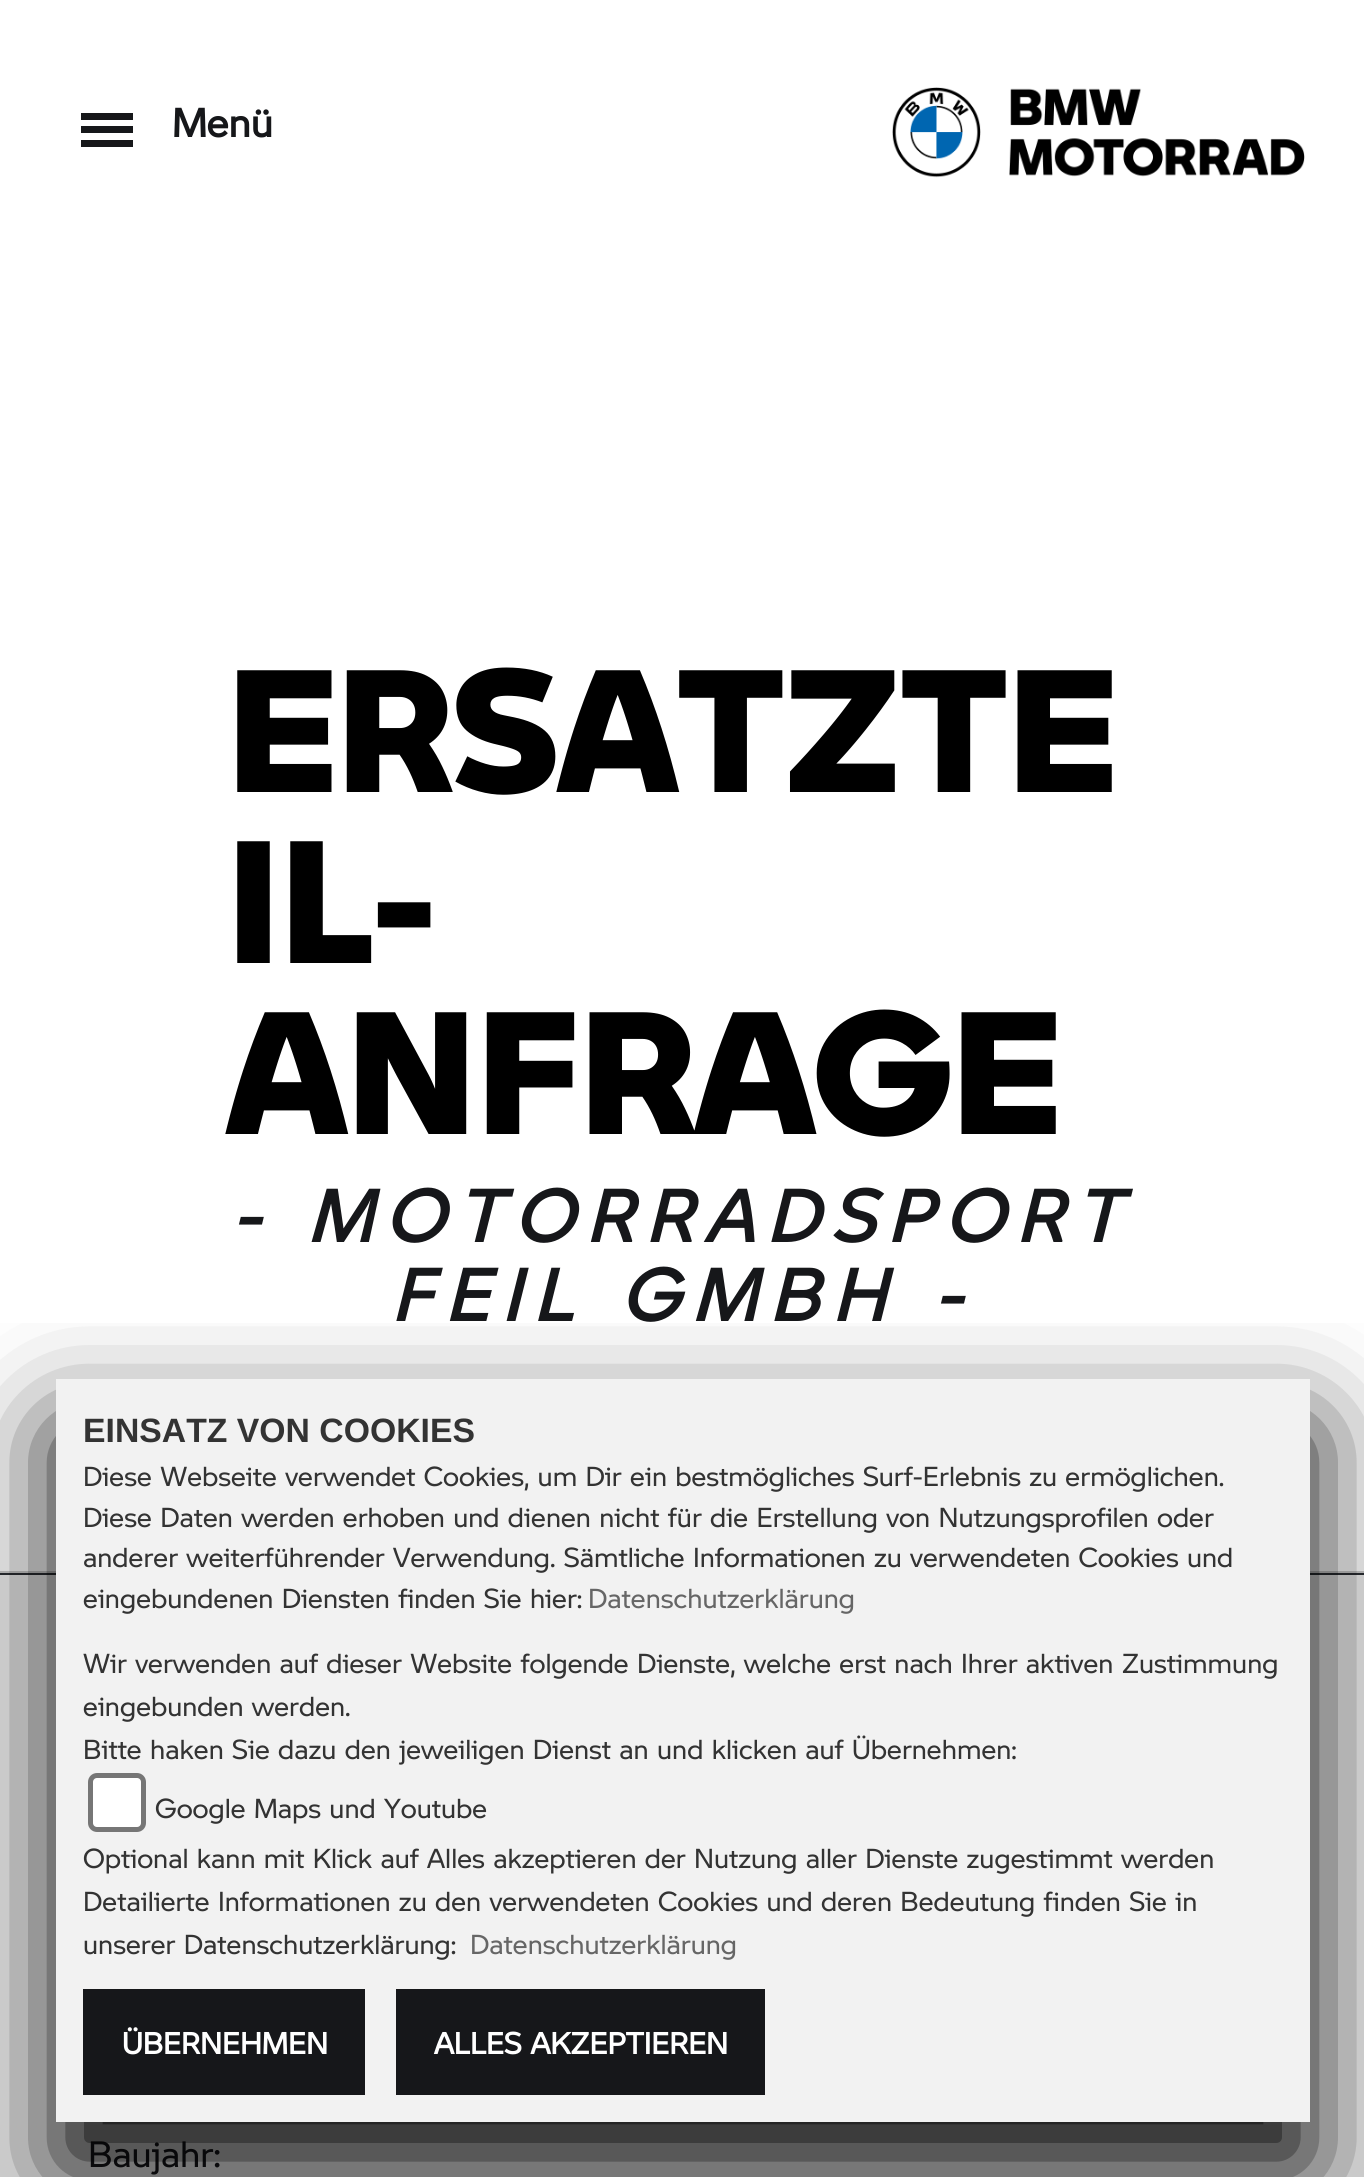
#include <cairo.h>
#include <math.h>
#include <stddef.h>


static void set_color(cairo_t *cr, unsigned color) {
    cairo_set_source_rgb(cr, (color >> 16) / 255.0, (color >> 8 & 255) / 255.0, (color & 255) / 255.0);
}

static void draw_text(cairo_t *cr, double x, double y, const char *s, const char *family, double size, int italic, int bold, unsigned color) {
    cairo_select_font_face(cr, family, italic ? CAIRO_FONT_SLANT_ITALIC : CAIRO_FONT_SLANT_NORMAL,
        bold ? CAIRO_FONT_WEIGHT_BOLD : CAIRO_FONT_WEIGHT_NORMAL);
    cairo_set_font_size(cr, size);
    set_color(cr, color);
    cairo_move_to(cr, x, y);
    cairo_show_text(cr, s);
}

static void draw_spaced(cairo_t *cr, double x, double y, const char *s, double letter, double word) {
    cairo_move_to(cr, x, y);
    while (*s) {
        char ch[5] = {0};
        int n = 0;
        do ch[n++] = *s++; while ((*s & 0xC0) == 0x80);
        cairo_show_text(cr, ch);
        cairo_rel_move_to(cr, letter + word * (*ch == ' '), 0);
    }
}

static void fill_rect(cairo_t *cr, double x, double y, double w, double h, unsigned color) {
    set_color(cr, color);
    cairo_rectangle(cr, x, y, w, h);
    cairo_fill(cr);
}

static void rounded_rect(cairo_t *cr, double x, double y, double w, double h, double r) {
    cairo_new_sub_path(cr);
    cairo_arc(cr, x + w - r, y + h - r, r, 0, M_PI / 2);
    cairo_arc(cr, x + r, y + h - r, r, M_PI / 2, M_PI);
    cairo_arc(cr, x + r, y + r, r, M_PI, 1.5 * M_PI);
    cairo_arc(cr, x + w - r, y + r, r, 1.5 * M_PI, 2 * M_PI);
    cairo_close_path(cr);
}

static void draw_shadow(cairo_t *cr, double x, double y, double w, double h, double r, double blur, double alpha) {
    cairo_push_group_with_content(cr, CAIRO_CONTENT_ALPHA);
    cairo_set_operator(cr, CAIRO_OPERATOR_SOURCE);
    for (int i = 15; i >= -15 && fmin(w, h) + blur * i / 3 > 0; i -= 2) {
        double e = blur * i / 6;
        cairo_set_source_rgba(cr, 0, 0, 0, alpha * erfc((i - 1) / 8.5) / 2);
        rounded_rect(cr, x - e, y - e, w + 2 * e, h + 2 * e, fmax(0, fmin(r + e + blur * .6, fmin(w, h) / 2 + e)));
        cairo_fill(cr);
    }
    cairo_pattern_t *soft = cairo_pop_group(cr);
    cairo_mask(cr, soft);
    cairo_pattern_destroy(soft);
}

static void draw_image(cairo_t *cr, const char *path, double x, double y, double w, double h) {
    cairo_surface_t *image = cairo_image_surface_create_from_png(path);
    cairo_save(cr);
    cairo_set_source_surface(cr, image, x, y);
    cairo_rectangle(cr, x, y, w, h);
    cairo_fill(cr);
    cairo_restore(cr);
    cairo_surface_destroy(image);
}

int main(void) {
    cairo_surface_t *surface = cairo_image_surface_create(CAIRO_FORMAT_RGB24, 1364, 2177);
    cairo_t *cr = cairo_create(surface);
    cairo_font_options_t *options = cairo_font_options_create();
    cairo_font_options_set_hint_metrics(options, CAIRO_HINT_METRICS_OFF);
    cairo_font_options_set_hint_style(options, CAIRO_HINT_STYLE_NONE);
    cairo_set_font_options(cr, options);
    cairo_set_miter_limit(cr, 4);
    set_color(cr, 0x2B2E33);
    cairo_paint(cr);
    fill_rect(cr, 0, 0, 1364, 1571, 0xFFFFFF);
    fill_rect(cr, 81, 113, 52, 7, 0x16171A);
    fill_rect(cr, 81, 126, 52, 7, 0x16171A);
    fill_rect(cr, 81, 140, 52, 7, 0x16171A);
    draw_text(cr, 172, 137, "Menü", "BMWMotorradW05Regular", 39.5, 0, 1, 0x16171A);
    draw_image(cr, "assets/img1.png", 892, 87, 413, 91);
    fill_rect(cr, 0, 1571, 1364, 2, 0xCCCCCC);
    draw_text(cr, 227, 792, "ERSATZTE", "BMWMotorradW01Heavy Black", 171, 0, 0, 0x000000);
    draw_text(cr, 227, 963, "IL-", "BMWMotorradW01Heavy Black", 171, 0, 0, 0x000000);
    draw_text(cr, 227, 1134, "ANFRAGE", "BMWMotorradW01Heavy Black", 171, 0, 0, 0x000000);
    cairo_select_font_face(cr, "BMWMotorradW05Regular", CAIRO_FONT_SLANT_ITALIC, CAIRO_FONT_WEIGHT_BOLD);
    cairo_set_font_size(cr, 72);
    set_color(cr, 0x16171A);
    draw_spaced(cr, 232, 1242, "- MOTORRADSPORT", 13.5, 0);
    draw_spaced(cr, 391, 1321, "FEIL GMBH -", 13.5, 0);
    fill_rect(cr, 0, 1575, 1364, 602, 0xEFEFEF);
    draw_text(cr, 88, 2167, "Baujahr:", "BMWMotorradW05Regular", 36, 0, 0, 0x16171A);
    cairo_save(cr);
    cairo_rectangle(cr, 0, 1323, 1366, 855);
    cairo_clip(cr);
    set_color(cr, 0x000000);
    draw_shadow(cr, 56, 1429, 1254, 742, 0, 56, 1);
    cairo_restore(cr);
    fill_rect(cr, 56, 1379, 1254, 743, 0xF2F2F2);
    draw_text(cr, 83, 1442, "EINSATZ VON COOKIES", "Liberation Sans", 33.75, 0, 1, 0x333333);
    draw_text(cr, 83, 1486, "Diese Webseite verwendet Cookies, um Dir ein bestmögliches Surf-Erlebnis zu ermöglichen.", "BMWMotorradW05Regular", 27, 0, 0, 0x333333);
    draw_text(cr, 83, 1527, "Diese Daten werden erhoben und dienen nicht für die Erstellung von Nutzungsprofilen oder", "BMWMotorradW05Regular", 27, 0, 0, 0x333333);
    draw_text(cr, 83, 1567, "anderer weiterführender Verwendung. Sämtliche Informationen zu verwendeten Cookies und", "BMWMotorradW05Regular", 27, 0, 0, 0x333333);
    draw_text(cr, 83, 1608, "eingebundenen Diensten finden Sie hier:", "BMWMotorradW05Regular", 27, 0, 0, 0x333333);
    draw_text(cr, 588, 1608, "Datenschutzerklärung", "BMWMotorradW05Regular", 27, 0, 0, 0x666666);
    draw_text(cr, 83, 1673, "Wir verwenden auf dieser Website folgende Dienste, welche erst nach Ihrer aktiven Zustimmung", "BMWMotorradW05Regular", 27, 0, 0, 0x333333);
    draw_text(cr, 83, 1716, "eingebunden werden.", "BMWMotorradW05Regular", 27, 0, 0, 0x333333);
    draw_text(cr, 83, 1759, "Bitte haken Sie dazu den jeweiligen Dienst an und klicken auf Übernehmen:", "BMWMotorradW05Regular", 27, 0, 0, 0x333333);
    set_color(cr, 0xFFFFFF);
    rounded_rect(cr, 90.5, 1775.5, 53, 54, 6.5);
    cairo_fill_preserve(cr);
    set_color(cr, 0x767676);
    cairo_set_line_width(cr, 5);
    cairo_stroke(cr);
    draw_text(cr, 155, 1818, "Google Maps und Youtube", "BMWMotorradW05Regular", 27, 0, 0, 0x333333);
    draw_text(cr, 83, 1868, "Optional kann mit Klick auf Alles akzeptieren der Nutzung aller Dienste zugestimmt werden", "BMWMotorradW05Regular", 27, 0, 0, 0x333333);
    draw_text(cr, 83, 1911, "Detailierte Informationen zu den verwendeten Cookies und deren Bedeutung finden Sie in", "BMWMotorradW05Regular", 27, 0, 0, 0x333333);
    draw_text(cr, 83, 1954, "unserer Datenschutzerklärung:", "BMWMotorradW05Regular", 27, 0, 0, 0x333333);
    draw_text(cr, 470, 1954, "Datenschutzerklärung", "BMWMotorradW05Regular", 27, 0, 0, 0x666666);
    fill_rect(cr, 83, 1989, 282, 106, 0x16171A);
    draw_text(cr, 122, 2054, "ÜBERNEHMEN", "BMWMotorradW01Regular", 29.75, 0, 1, 0xFFFFFF);
    fill_rect(cr, 396, 1989, 369, 106, 0x16171A);
    draw_text(cr, 434, 2054, "ALLES AKZEPTIEREN", "BMWMotorradW01Regular", 29.75, 0, 1, 0xFFFFFF);
    cairo_surface_write_to_png(surface, "output.png");
    cairo_font_options_destroy(options);
    cairo_destroy(cr);
    cairo_surface_destroy(surface);
    return 0;
}
